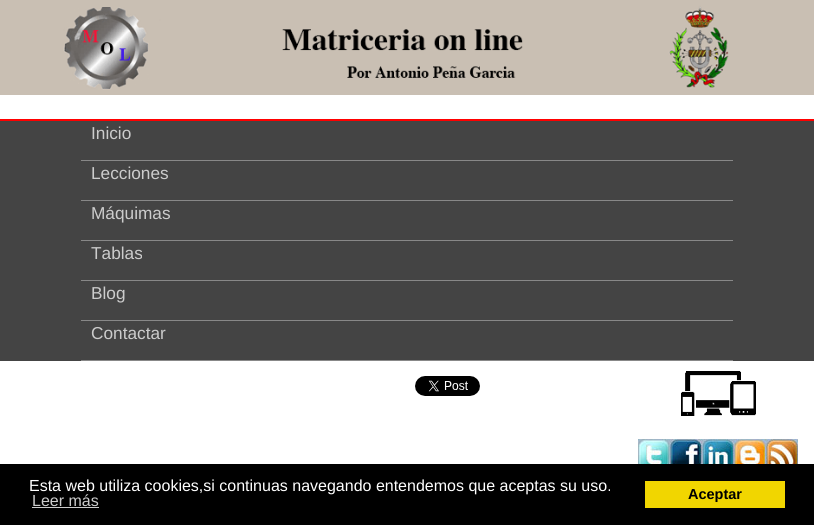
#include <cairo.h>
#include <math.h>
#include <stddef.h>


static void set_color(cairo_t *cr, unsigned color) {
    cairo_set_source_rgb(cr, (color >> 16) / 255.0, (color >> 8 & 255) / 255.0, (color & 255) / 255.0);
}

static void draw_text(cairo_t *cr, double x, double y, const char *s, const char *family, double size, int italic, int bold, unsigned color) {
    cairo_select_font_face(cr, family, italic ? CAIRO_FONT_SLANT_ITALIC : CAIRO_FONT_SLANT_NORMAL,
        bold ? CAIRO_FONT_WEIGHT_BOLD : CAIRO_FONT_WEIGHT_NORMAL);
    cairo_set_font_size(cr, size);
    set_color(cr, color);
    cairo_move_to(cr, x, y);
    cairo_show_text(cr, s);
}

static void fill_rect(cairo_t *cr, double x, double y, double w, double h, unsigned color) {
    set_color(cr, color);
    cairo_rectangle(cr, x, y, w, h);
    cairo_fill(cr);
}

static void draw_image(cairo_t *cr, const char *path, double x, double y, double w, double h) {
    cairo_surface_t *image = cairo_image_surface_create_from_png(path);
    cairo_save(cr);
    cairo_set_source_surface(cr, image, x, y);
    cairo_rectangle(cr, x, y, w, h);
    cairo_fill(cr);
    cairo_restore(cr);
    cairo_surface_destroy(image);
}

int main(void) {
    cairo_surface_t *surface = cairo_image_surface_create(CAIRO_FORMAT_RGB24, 814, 525);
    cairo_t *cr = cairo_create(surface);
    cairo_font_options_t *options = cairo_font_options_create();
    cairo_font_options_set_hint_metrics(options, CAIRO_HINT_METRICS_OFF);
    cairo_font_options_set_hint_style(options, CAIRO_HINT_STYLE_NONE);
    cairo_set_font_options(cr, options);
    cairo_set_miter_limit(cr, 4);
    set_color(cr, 0xFFFFFF);
    cairo_paint(cr);
    draw_image(cr, "assets/img1.png", 0, 0, 814, 95);
    fill_rect(cr, 0, 121, 814, 240, 0x444444);
    fill_rect(cr, 0, 119, 814, 2, 0xFF0000);
    fill_rect(cr, 81, 160, 652, 1, 0x888888);
    draw_text(cr, 91, 139, "Inicio", "Liberation Sans", 17.25, 0, 0, 0xCCCCCC);
    fill_rect(cr, 81, 200, 652, 1, 0x888888);
    draw_text(cr, 91, 179, "Lecciones", "Liberation Sans", 17.25, 0, 0, 0xCCCCCC);
    fill_rect(cr, 81, 240, 652, 1, 0x888888);
    draw_text(cr, 91, 219, "Máquimas", "Liberation Sans", 17.25, 0, 0, 0xCCCCCC);
    fill_rect(cr, 81, 280, 652, 1, 0x888888);
    draw_text(cr, 91, 259, "Tablas", "Liberation Sans", 17.25, 0, 0, 0xCCCCCC);
    fill_rect(cr, 81, 320, 652, 1, 0x888888);
    draw_text(cr, 91, 299, "Blog", "Liberation Sans", 17.25, 0, 0, 0xCCCCCC);
    fill_rect(cr, 81, 360, 652, 1, 0x888888);
    draw_text(cr, 91, 339, "Contactar", "Liberation Sans", 17.25, 0, 0, 0xCCCCCC);
    draw_image(cr, "assets/img2.png", 415, 376, 65, 20);
    draw_image(cr, "assets/img3.png", 681, 371, 75, 45);
    draw_image(cr, "assets/img4.png", 638, 439, 160, 25);
    fill_rect(cr, 0, 464, 814, 61, 0x000000);
    draw_text(cr, 29, 491, "Esta web utiliza cookies,si continuas navegando entendemos que aceptas su uso.", "Liberation Sans", 16, 0, 0, 0xFFFFFF);
    draw_text(cr, 32, 506, "Leer más", "Liberation Sans", 16, 0, 0, 0xCCCCCC);
    fill_rect(cr, 32, 507, 67, 1, 0xCCCCCC);
    fill_rect(cr, 645, 481, 140, 27, 0xF1D600);
    draw_text(cr, 688, 499, "Aceptar", "Liberation Sans", 14.5, 0, 1, 0x000000);
    cairo_surface_write_to_png(surface, "output.png");
    cairo_font_options_destroy(options);
    cairo_destroy(cr);
    cairo_surface_destroy(surface);
    return 0;
}
